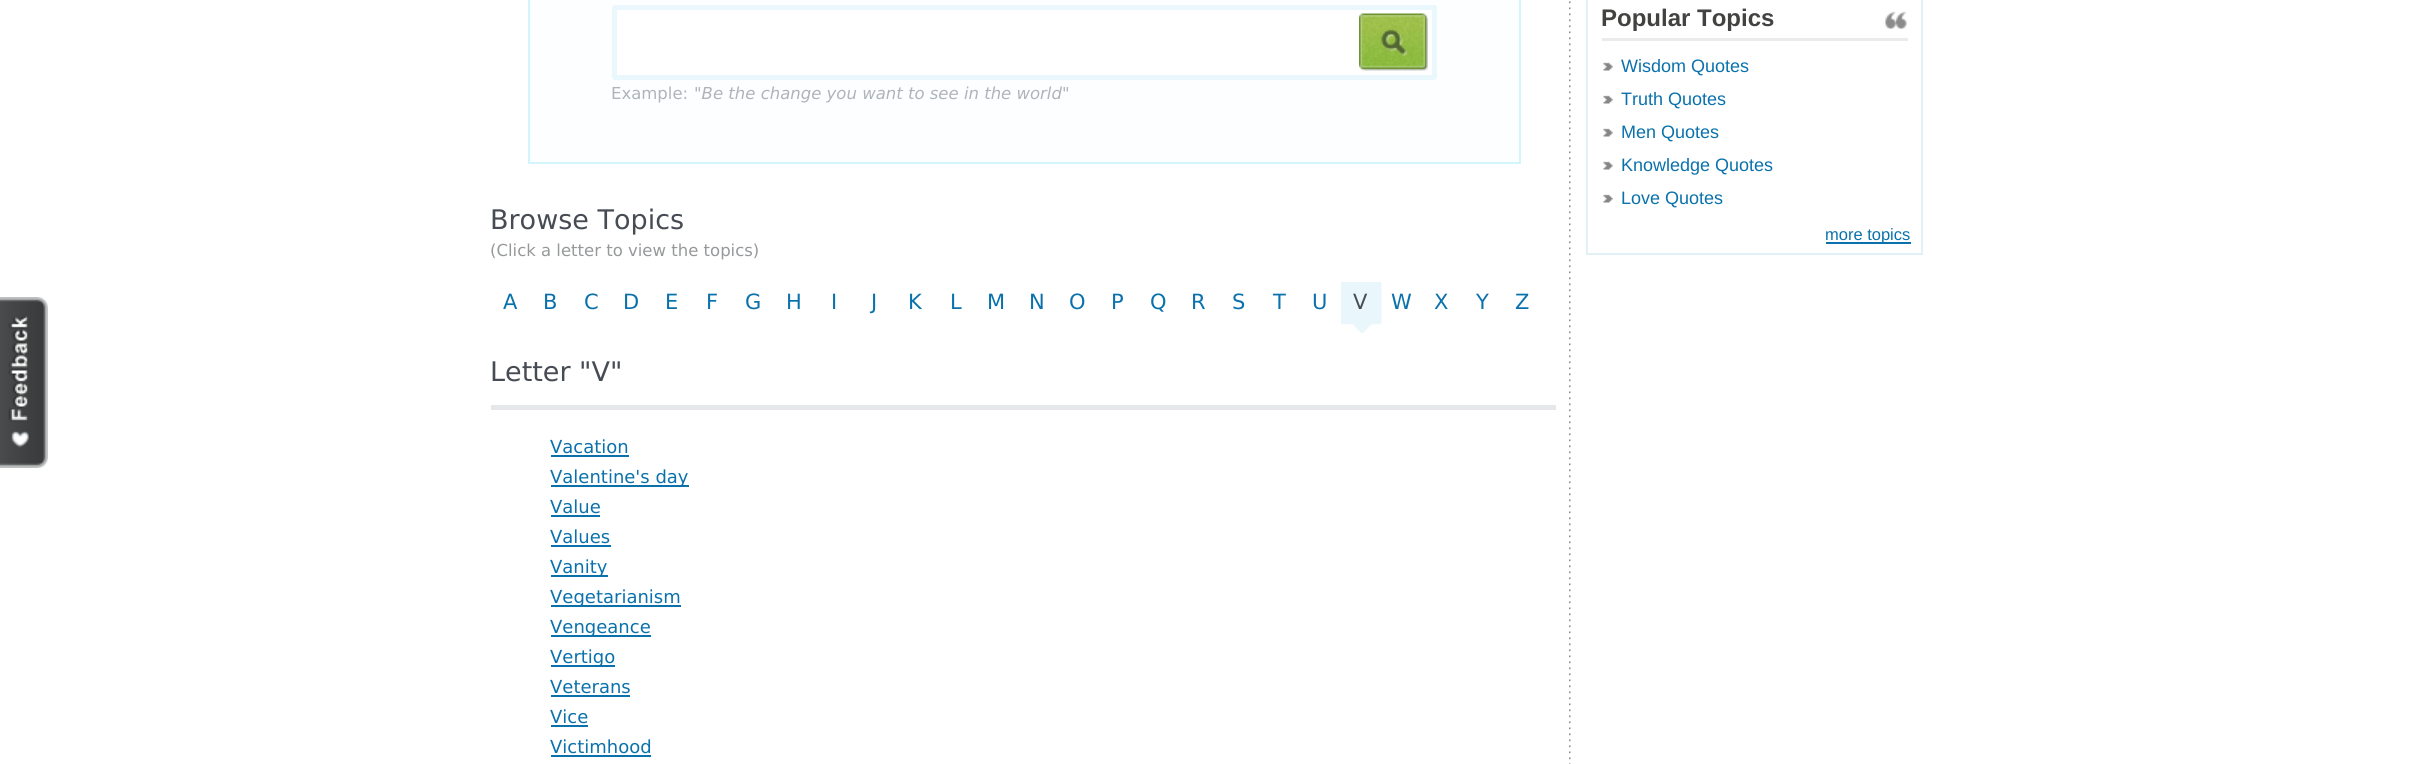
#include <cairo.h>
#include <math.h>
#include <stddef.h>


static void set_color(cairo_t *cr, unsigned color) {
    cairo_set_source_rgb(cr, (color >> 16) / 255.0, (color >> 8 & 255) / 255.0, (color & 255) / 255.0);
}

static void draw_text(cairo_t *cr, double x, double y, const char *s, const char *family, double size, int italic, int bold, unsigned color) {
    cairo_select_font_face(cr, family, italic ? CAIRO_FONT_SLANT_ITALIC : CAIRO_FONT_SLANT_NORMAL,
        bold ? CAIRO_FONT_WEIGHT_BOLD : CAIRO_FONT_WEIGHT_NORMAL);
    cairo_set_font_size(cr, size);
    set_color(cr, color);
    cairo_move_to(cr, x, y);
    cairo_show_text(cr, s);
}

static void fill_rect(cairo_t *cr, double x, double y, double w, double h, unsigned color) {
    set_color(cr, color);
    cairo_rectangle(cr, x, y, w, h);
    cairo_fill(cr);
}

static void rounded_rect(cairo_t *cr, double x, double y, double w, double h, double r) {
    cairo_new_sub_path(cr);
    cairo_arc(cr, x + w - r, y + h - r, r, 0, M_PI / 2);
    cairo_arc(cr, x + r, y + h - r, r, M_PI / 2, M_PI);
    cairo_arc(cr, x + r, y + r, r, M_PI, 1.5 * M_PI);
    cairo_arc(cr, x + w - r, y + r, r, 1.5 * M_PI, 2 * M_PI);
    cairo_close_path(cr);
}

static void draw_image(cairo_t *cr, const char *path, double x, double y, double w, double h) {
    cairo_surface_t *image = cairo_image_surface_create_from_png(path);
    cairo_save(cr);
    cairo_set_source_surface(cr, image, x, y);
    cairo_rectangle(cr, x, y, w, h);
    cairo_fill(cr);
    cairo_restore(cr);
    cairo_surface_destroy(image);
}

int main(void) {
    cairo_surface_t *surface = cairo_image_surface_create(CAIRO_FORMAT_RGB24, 2434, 764);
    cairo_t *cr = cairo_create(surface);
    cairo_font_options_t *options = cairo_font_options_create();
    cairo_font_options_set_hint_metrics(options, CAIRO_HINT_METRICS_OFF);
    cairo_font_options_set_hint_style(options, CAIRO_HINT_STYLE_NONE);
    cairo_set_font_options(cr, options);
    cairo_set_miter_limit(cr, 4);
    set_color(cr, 0xFFFFFF);
    cairo_paint(cr);
    draw_image(cr, "assets/img1.png", 0, 297, 48, 171);
    draw_image(cr, "assets/img2.png", 1569, 1, 2, 763);
    set_color(cr, 0xFCFEFF);
    cairo_rectangle(cr, 529, -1, 991, 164);
    cairo_fill_preserve(cr);
    set_color(cr, 0xD2F5FE);
    cairo_stroke(cr);
    set_color(cr, 0xFFFFFF);
    rounded_rect(cr, 614.5, 7.5, 820, 70, 0.5);
    cairo_fill_preserve(cr);
    set_color(cr, 0xEAF7FD);
    cairo_set_line_width(cr, 5);
    cairo_stroke(cr);
    draw_image(cr, "assets/img3.png", 1359, 13, 69, 58);
    draw_text(cr, 611, 99, "Example:", "DejaVu Sans", 16.5, 0, 0, 0xAEB4B7);
    draw_text(cr, 694, 99, "\"Be the change you want to see in the world\"", "DejaVu Sans", 16.5, 1, 0, 0xAEB4B7);
    draw_text(cr, 490, 229, "Browse Topics", "DejaVu Sans", 27, 0, 0, 0x474C54);
    draw_text(cr, 490, 256, "(Click a letter to view the topics)", "DejaVu Sans", 16.5, 0, 0, 0x96989A);
    draw_text(cr, 503, 309, "A", "DejaVu Sans", 21, 0, 0, 0x0A71AC);
    draw_text(cr, 543, 309, "B", "DejaVu Sans", 21, 0, 0, 0x0A71AC);
    draw_text(cr, 584, 309, "C", "DejaVu Sans", 21, 0, 0, 0x0A71AC);
    draw_text(cr, 623, 309, "D", "DejaVu Sans", 21, 0, 0, 0x0A71AC);
    draw_text(cr, 665, 309, "E", "DejaVu Sans", 21, 0, 0, 0x0A71AC);
    draw_text(cr, 706, 309, "F", "DejaVu Sans", 21, 0, 0, 0x0A71AC);
    draw_text(cr, 745, 309, "G", "DejaVu Sans", 21, 0, 0, 0x0A71AC);
    draw_text(cr, 786, 309, "H", "DejaVu Sans", 21, 0, 0, 0x0A71AC);
    draw_text(cr, 831, 309, "I", "DejaVu Sans", 21, 0, 0, 0x0A71AC);
    draw_text(cr, 871, 309, "J", "DejaVu Sans", 21, 0, 0, 0x0A71AC);
    draw_text(cr, 908, 309, "K", "DejaVu Sans", 21, 0, 0, 0x0A71AC);
    draw_text(cr, 950, 309, "L", "DejaVu Sans", 21, 0, 0, 0x0A71AC);
    draw_text(cr, 987, 309, "M", "DejaVu Sans", 21, 0, 0, 0x0A71AC);
    draw_text(cr, 1029, 309, "N", "DejaVu Sans", 21, 0, 0, 0x0A71AC);
    draw_text(cr, 1069, 309, "O", "DejaVu Sans", 21, 0, 0, 0x0A71AC);
    draw_text(cr, 1111, 309, "P", "DejaVu Sans", 21, 0, 0, 0x0A71AC);
    draw_text(cr, 1150, 309, "Q", "DejaVu Sans", 21, 0, 0, 0x0A71AC);
    draw_text(cr, 1191, 309, "R", "DejaVu Sans", 21, 0, 0, 0x0A71AC);
    draw_text(cr, 1232, 309, "S", "DejaVu Sans", 21, 0, 0, 0x0A71AC);
    draw_text(cr, 1273, 309, "T", "DejaVu Sans", 21, 0, 0, 0x0A71AC);
    draw_text(cr, 1312, 309, "U", "DejaVu Sans", 21, 0, 0, 0x0A71AC);
    draw_image(cr, "assets/img4.png", 1341, 282, 41, 51);
    draw_text(cr, 1353, 309, "V", "DejaVu Sans", 21, 0, 0, 0x474C54);
    draw_text(cr, 1391, 309, "W", "DejaVu Sans", 21, 0, 0, 0x0A71AC);
    draw_text(cr, 1434, 309, "X", "DejaVu Sans", 21, 0, 0, 0x0A71AC);
    draw_text(cr, 1476, 309, "Y", "DejaVu Sans", 21, 0, 0, 0x0A71AC);
    draw_text(cr, 1515, 309, "Z", "DejaVu Sans", 21, 0, 0, 0x0A71AC);
    draw_text(cr, 490, 381, "Letter \"V\"", "DejaVu Sans", 27, 0, 0, 0x474C54);
    fill_rect(cr, 491, 405, 1065, 5, 0xE5E7EB);
    draw_text(cr, 550, 453, "Vacation", "DejaVu Sans", 18, 0, 0, 0x0A71AC);
    fill_rect(cr, 551, 455, 78, 2, 0x0A71AC);
    fill_rect(cr, 551, 485, 138, 2, 0x0A71AC);
    draw_text(cr, 550, 483, "Valentine's day", "DejaVu Sans", 18, 0, 0, 0x0A71AC);
    draw_text(cr, 550, 513, "Value", "DejaVu Sans", 18, 0, 0, 0x0A71AC);
    fill_rect(cr, 551, 515, 49, 2, 0x0A71AC);
    draw_text(cr, 550, 543, "Values", "DejaVu Sans", 18, 0, 0, 0x0A71AC);
    fill_rect(cr, 551, 545, 60, 2, 0x0A71AC);
    fill_rect(cr, 551, 575, 57, 2, 0x0A71AC);
    draw_text(cr, 550, 573, "Vanity", "DejaVu Sans", 18, 0, 0, 0x0A71AC);
    fill_rect(cr, 551, 605, 130, 2, 0x0A71AC);
    draw_text(cr, 550, 603, "Vegetarianism", "DejaVu Sans", 18, 0, 0, 0x0A71AC);
    fill_rect(cr, 551, 635, 100, 2, 0x0A71AC);
    draw_text(cr, 550, 633, "Vengeance", "DejaVu Sans", 18, 0, 0, 0x0A71AC);
    fill_rect(cr, 551, 665, 64, 2, 0x0A71AC);
    draw_text(cr, 550, 663, "Vertigo", "DejaVu Sans", 18, 0, 0, 0x0A71AC);
    draw_text(cr, 550, 693, "Veterans", "DejaVu Sans", 18, 0, 0, 0x0A71AC);
    fill_rect(cr, 551, 695, 79, 2, 0x0A71AC);
    draw_text(cr, 550, 723, "Vice", "DejaVu Sans", 18, 0, 0, 0x0A71AC);
    fill_rect(cr, 551, 725, 37, 2, 0x0A71AC);
    draw_text(cr, 550, 753, "Victimhood", "DejaVu Sans", 18, 0, 0, 0x0A71AC);
    fill_rect(cr, 551, 755, 100, 2, 0x0A71AC);
    cairo_rectangle(cr, 1587, -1, 335, 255);
    set_color(cr, 0xE1F1F5);
    cairo_set_line_width(cr, 2);
    cairo_stroke(cr);
    draw_image(cr, "assets/img5.png", 1885, 11, 22, 18);
    fill_rect(cr, 1602, 38, 306, 3, 0xEBEBEB);
    draw_text(cr, 1601, 26, "Popular Topics", "Liberation Sans", 24, 0, 1, 0x424241);
    draw_image(cr, "assets/img6.png", 1603, 62, 10, 9);
    draw_text(cr, 1621, 72, "Wisdom Quotes", "Liberation Sans", 18, 0, 0, 0x0A71AC);
    draw_image(cr, "assets/img6.png", 1603, 95, 10, 9);
    draw_text(cr, 1621, 105, "Truth Quotes", "Liberation Sans", 18, 0, 0, 0x0A71AC);
    draw_image(cr, "assets/img6.png", 1603, 128, 10, 9);
    draw_text(cr, 1621, 138, "Men Quotes", "Liberation Sans", 18, 0, 0, 0x0A71AC);
    draw_image(cr, "assets/img6.png", 1603, 161, 10, 9);
    draw_text(cr, 1621, 171, "Knowledge Quotes", "Liberation Sans", 18, 0, 0, 0x0A71AC);
    draw_image(cr, "assets/img6.png", 1603, 194, 10, 9);
    draw_text(cr, 1621, 204, "Love Quotes", "Liberation Sans", 18, 0, 0, 0x0A71AC);
    fill_rect(cr, 1826, 242, 85, 2, 0x0A71AC);
    draw_text(cr, 1825, 240, "more topics", "Liberation Sans", 16.5, 0, 0, 0x0A71AC);
    cairo_surface_write_to_png(surface, "output.png");
    cairo_font_options_destroy(options);
    cairo_destroy(cr);
    cairo_surface_destroy(surface);
    return 0;
}
